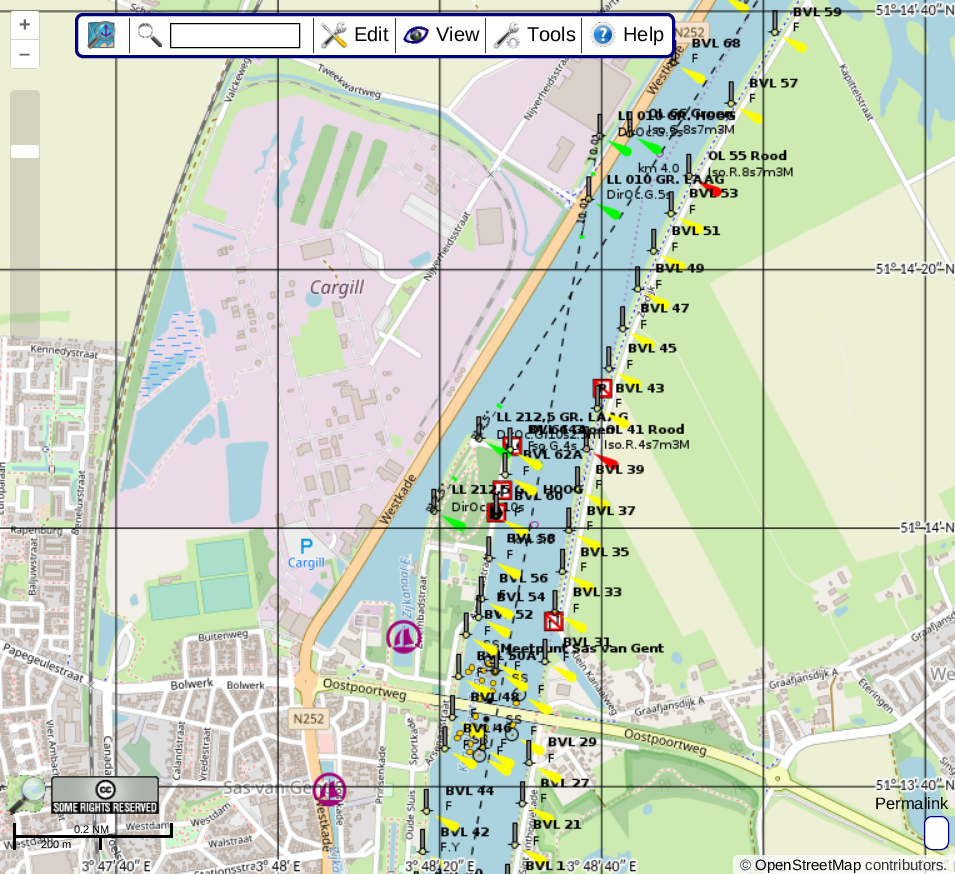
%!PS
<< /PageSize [955 874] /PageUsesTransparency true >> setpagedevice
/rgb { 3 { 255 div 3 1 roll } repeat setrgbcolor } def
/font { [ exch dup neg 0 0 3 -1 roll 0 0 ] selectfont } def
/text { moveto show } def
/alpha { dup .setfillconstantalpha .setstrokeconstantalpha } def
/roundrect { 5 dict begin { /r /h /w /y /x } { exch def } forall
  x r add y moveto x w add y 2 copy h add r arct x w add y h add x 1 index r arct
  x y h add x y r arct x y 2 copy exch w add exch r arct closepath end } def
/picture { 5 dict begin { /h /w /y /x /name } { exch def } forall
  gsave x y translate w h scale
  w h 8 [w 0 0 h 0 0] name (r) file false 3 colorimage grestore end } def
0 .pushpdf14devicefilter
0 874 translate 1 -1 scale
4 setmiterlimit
255 255 255 rgb
0 0 955 874 rectfill
(img_01.rgb) 0 0 955 874 picture
0.25 alpha
128 128 128 rgb
10 10 30 59 5 roundrect fill
1 alpha
255 255 255 rgb
13.5 11 moveto 23 0 rlineto 1.5 0 2.5 1 2.5 2.5 rcurveto 0 25.5 rlineto -28 0 rlineto 0 -25.5 rlineto 0 -1.5 1 -2.5 2.5 -2.5 rcurveto closepath fill
11 40 moveto 28 0 rlineto 0 25.5 rlineto 0 1.5 -1 2.5 -2.5 2.5 rcurveto -23 0 rlineto -1.5 0 -2.5 -1 -2.5 -2.5 rcurveto closepath fill
0.25 alpha
128 128 128 rgb
10 90 30 250 5 roundrect fill
1 alpha
255 255 255 rgb
11 145 28 13 2.5 roundrect fill
0 0 0 rgb
170 823 3 15 rectfill
99 835 3 15 rectfill
13 835 3 15 rectfill
13 835 160 3 rectfill
13 823 3 15 rectfill
255 255 255 rgb
924.5 816.5 24 33 7.5 roundrect gsave fill grestore
0 0 128 rgb
stroke
0.75 alpha
255 255 255 rgb
738 855 moveto 217 0 rlineto 0 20 rlineto -222 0 rlineto 0 -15 rlineto 0 -3 2 -5 5 -5 rcurveto closepath fill
1 alpha
76.5 14.5 597 42 6.5 roundrect gsave fill grestore
0 0 128 rgb
3 setlinewidth
stroke
51 51 51 rgb
129 18 1 35 rectfill
(img_02.rgb) 87 20 29 30 picture
313 18 1 35 rectfill
(img_03.rgb) 138 23 24 24 picture
0 0 0 rgb
1 setlinewidth
170.5 23.5 129 24 rectstroke
51 51 51 rgb
395 18 1 35 rectfill
(img_04.rgb) 320 21 28 28 picture
485 18 1 35 rectfill
(img_05.rgb) 403 26 27 18 picture
581 18 1 35 rectfill
(img_06.rgb) 493 22 27 27 picture
(img_07.rgb) 590 22 26 25 picture
(img_08.rgb) 6 775 41 40 picture
(img_09.rgb) 51 776 108 38 picture
/LiberationSans-Bold 20 font
102 102 102 rgb
(+) 19 31 text
(–) 19 60 text
/LiberationSans-Regular 16.5 font
0 0 0 rgb
(Permalink) 875 809 text
/LiberationSans-Regular 11 font
(0.2 NM) 74 833 text
(200 m) 41 848 text
/LiberationSans-Regular 15 font
51 51 51 rgb
(©) 740 870 text
0 0 0 rgb
(OpenStreetMap) 755 870 text
51 51 51 rgb
(contributors.) 865 870 text
/LiberationSans-Regular 20 font
0 0 0 rgb
(Edit) 354 41 text
(View) 436 41 text
(Tools) 527 41 text
(Help) 623 41 text
.poppdf14devicefilter showpage
